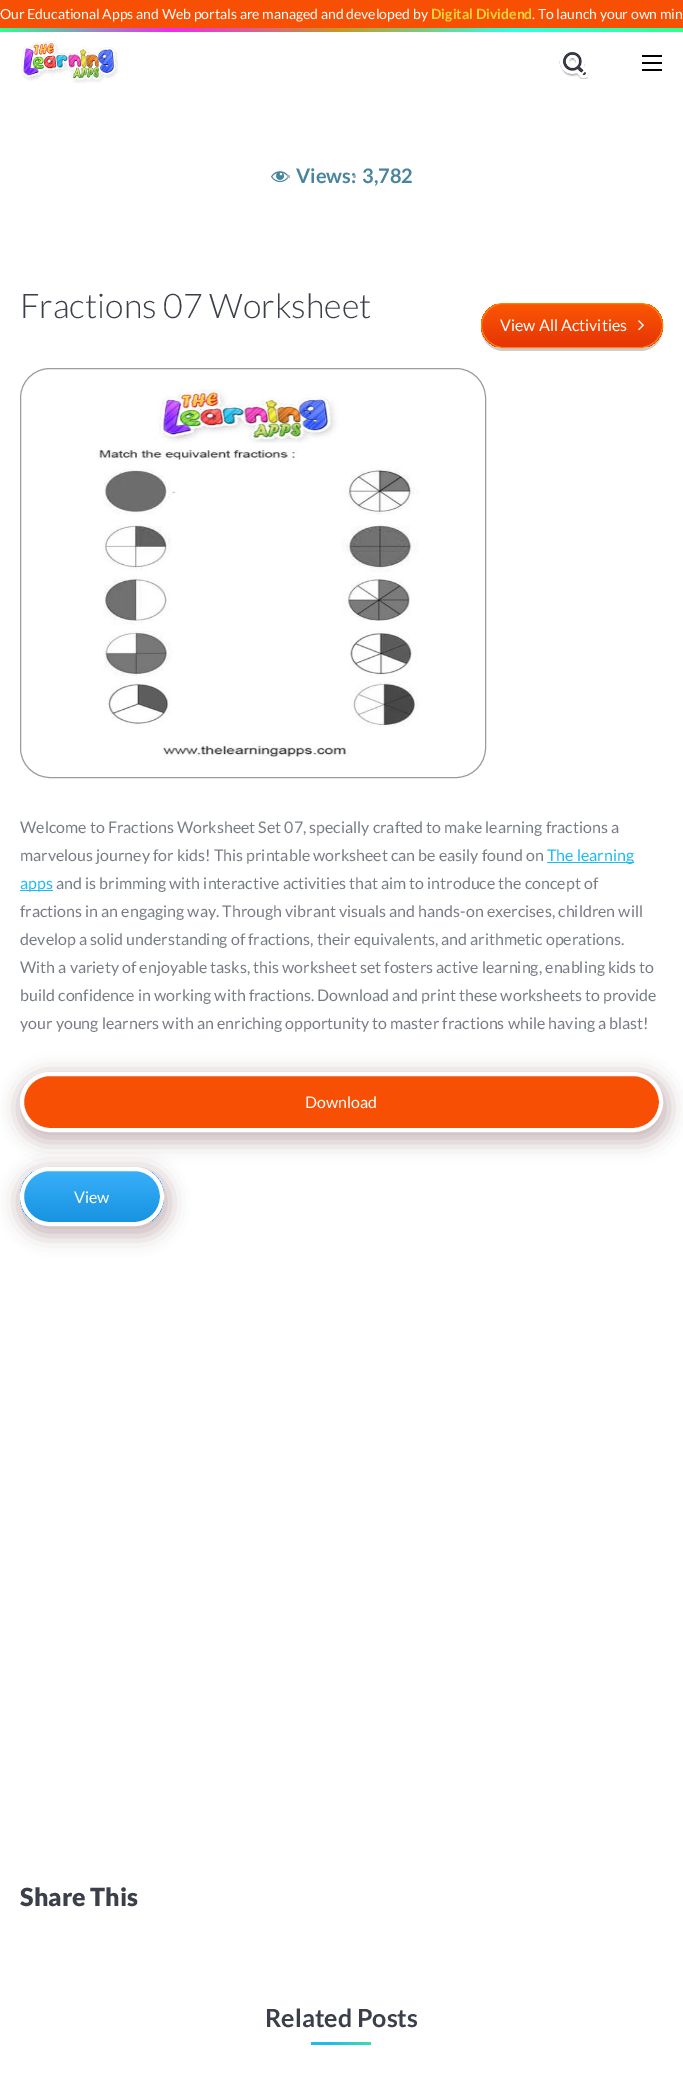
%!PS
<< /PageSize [683 2076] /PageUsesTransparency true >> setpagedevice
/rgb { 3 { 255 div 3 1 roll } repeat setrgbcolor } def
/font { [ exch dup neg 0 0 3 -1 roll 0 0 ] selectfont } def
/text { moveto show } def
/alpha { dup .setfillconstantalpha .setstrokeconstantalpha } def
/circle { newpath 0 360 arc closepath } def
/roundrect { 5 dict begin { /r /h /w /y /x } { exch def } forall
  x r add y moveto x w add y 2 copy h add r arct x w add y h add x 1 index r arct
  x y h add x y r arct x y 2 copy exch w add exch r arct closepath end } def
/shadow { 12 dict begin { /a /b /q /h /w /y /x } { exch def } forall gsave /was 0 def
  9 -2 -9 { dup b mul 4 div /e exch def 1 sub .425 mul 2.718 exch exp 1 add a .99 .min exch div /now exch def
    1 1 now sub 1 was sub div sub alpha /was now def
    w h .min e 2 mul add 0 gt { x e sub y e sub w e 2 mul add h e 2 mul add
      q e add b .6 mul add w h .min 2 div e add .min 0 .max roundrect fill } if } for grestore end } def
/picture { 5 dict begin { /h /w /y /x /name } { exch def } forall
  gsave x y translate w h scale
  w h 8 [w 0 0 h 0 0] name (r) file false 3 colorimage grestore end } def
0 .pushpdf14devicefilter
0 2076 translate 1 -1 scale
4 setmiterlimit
247 80 5 rgb
0 0 683 2076 rectfill
gsave 0 28 moveto 683 0 rlineto 0 4 rlineto -683 0 rlineto closepath clip newpath
<< /ShadingType 2 /ColorSpace /DeviceRGB /Coords [0 30 683 30] /Extend [true true] /Function << /FunctionType 3 /Domain [0 1] /Functions [<< /FunctionType 2 /Domain [0 1] /C0 [0.188 1 0.565] /C1 [0.929 0.176 0.929] /N 1 >> << /FunctionType 2 /Domain [0 1] /C0 [0.929 0.176 0.929] /C1 [0.788 0.596 0.149] /N 1 >> << /FunctionType 2 /Domain [0 1] /C0 [0.788 0.596 0.149] /C1 [0.188 1 0.902] /N 1 >> << /FunctionType 2 /Domain [0 1] /C0 [0.188 1 0.902] /C1 [0.188 1 0.565] /N 1 >>] /Bounds [0.25 0.5 0.75] /Encode [0 1 0 1 0 1 0 1] >> >> shfill grestore
255 255 255 rgb
0 32 683 2044 rectfill
(img_01.rgb) 21 41 97 42 picture
(img_02.rgb) 559 52 31 27 picture
0 0 0 rgb
642 55 20 2 rectfill
642 62 20 2 rectfill
642 69 20 2 rectfill
(img_03.rgb) 271 171 18 12 picture
173 176 182 rgb
288.5 176.5 1.5 circle fill
204 204 204 rgb
481 327 moveto 0 1 rlineto 0 13 10 23 23 23 rcurveto 136 0 rlineto 13 0 23 -10 23 -23 rcurveto 0 -1 rlineto -1 12 -11 21 -23 21 rcurveto -136 0 rlineto -12 0 -22 -9 -23 -21 rcurveto closepath fill
gsave
481 303 182 45 22.5 roundrect clip newpath
gsave 481 304 moveto 182 0 rlineto 0 43 rlineto -182 0 rlineto closepath clip newpath
<< /ShadingType 2 /ColorSpace /DeviceRGB /Coords [572 304 572 347] /Extend [true true] /Function << /FunctionType 2 /Domain [0 1] /C0 [0.984 0.341 0.016] /C1 [0.898 0.204 0.016] /N 1 >> >> shfill grestore
grestore
255 129 0 rgb
481.5 303.5 181 44 22 roundrect stroke
(img_04.rgb) 638 320 6 11 picture
156 156 156 rgb
20.5 368.5 465 409 29.5 roundrect stroke
(img_05.rgb) 96 389 323 368 picture
30 187 240 rgb
547 862 87 1 rectfill
20 890 33 1 rectfill
183 158 162 rgb
18 1074 651 68 34 9.5 0.72 shadow
247 80 5 rgb
22 1074 639 56 28 roundrect gsave fill grestore
255 255 255 rgb
4 setlinewidth
stroke
183 158 162 rgb
18 1169 152 67 33.5 9.5 0.72 shadow
gsave
20 1167 144 59 29.5 roundrect clip newpath
gsave 20 1171 moveto 144 0 rlineto 0 51 rlineto -144 0 rlineto closepath clip newpath
<< /ShadingType 2 /ColorSpace /DeviceRGB /Coords [92 1171 92 1222] /Extend [true true] /Function << /FunctionType 2 /Domain [0 1] /C0 [0.224 0.686 0.976] /C1 [0.09 0.576 0.878] /N 1 >> >> shfill grestore
grestore
255 255 255 rgb
22 1169 140 55 27.5 roundrect stroke
gsave 311 2042 moveto 60 0 rlineto 0 3 rlineto -60 0 rlineto closepath clip newpath
<< /ShadingType 2 /ColorSpace /DeviceRGB /Coords [311 2044 371 2044] /Extend [true true] /Function << /FunctionType 3 /Domain [0 1] /Functions [<< /FunctionType 2 /Domain [0 1] /C0 [0.118 0.733 0.941] /C1 [0.118 0.733 0.941] /N 1 >> << /FunctionType 2 /Domain [0 1] /C0 [0.118 0.733 0.941] /C1 [0.224 0.875 0.667] /N 1 >>] /Bounds [0.3] /Encode [0 1 0 1] >> >> shfill grestore
/Lato-Regular 14 font
(Our Educational Apps and Web portals are managed and developed by) 0 19 text
/Lato-Bold 14 font
250 212 50 rgb
(Digital Dividend) 431 19 text
/Lato-Regular 14 font
255 255 255 rgb
(. To launch your own min) 532 19 text
/Lato-Bold 20 font
72 133 156 rgb
(Views:) 296 183 text
173 176 182 rgb
354.5 176.5 1.5 circle fill
72 133 156 rgb
(3,782) 362 183 text
/Lato-Light 34 font
59 63 74 rgb
(Fractions 07 Worksheet) 20 318 text
/Lato-Regular 16 font
255 255 255 rgb
(View All Activities) 500 331 text
120 125 133 rgb
(Welcome to Fractions Worksheet Set 07, specially crafted to make learning fractions a) 20 833 text
(marvelous journey for kids! This printable worksheet can be easily found on) 20 861 text
30 187 240 rgb
(The learning) 547 861 text
(apps) 20 889 text
120 125 133 rgb
(and is brimming with interactive activities that aim to introduce the concept of) 56 889 text
(fractions in an engaging way. Through vibrant visuals and hands-on exercises, children will) 20 917 text
(develop a solid understanding of fractions, their equivalents, and arithmetic operations.) 20 945 text
(With a variety of enjoyable tasks, this worksheet set fosters active learning, enabling kids to) 20 973 text
(build confidence in working with fractions. Download and print these worksheets to provide) 20 1001 text
(your young learners with an enriching opportunity to master fractions while having a blast!) 20 1029 text
255 255 255 rgb
(Download) 305 1108 text
(View) 74 1203 text
/Lato-Black 25 font
59 63 74 rgb
(Share This) 20 1906 text
/Lato-Bold 25 font
(Related Posts) 265 2027 text
.poppdf14devicefilter showpage
